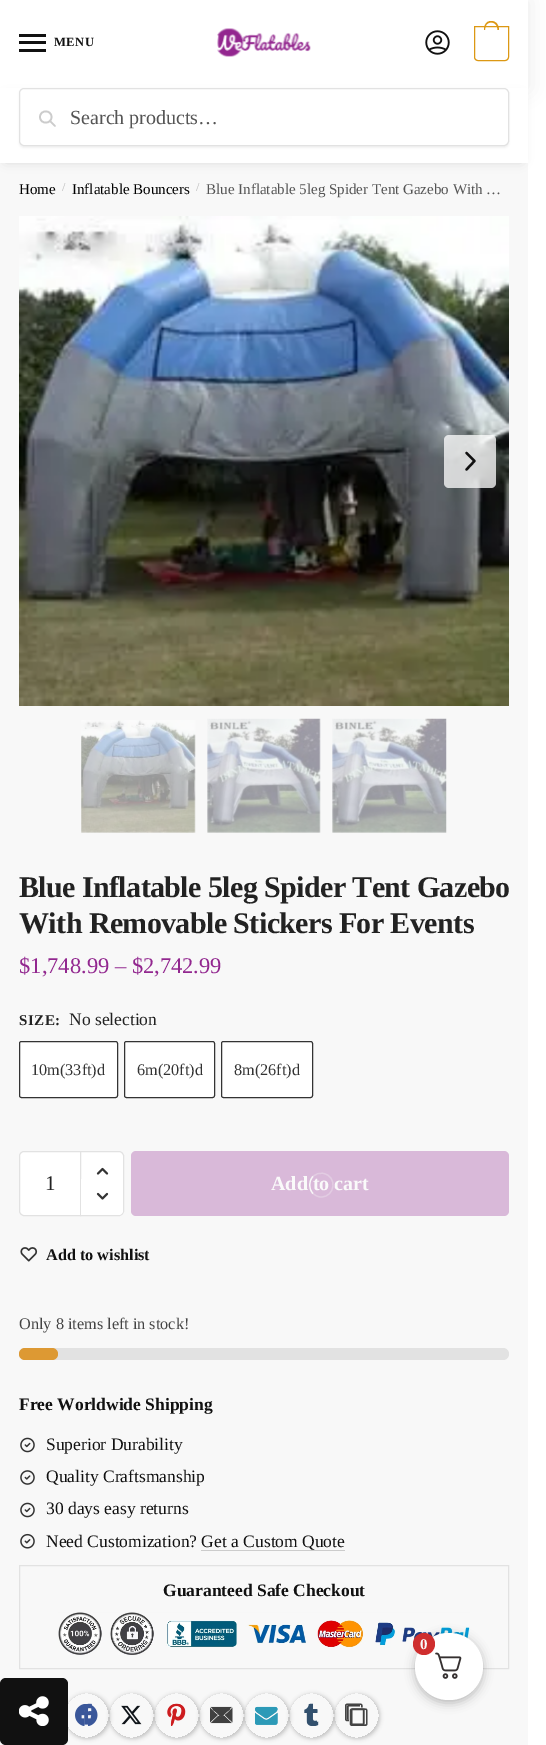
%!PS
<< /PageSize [546 1745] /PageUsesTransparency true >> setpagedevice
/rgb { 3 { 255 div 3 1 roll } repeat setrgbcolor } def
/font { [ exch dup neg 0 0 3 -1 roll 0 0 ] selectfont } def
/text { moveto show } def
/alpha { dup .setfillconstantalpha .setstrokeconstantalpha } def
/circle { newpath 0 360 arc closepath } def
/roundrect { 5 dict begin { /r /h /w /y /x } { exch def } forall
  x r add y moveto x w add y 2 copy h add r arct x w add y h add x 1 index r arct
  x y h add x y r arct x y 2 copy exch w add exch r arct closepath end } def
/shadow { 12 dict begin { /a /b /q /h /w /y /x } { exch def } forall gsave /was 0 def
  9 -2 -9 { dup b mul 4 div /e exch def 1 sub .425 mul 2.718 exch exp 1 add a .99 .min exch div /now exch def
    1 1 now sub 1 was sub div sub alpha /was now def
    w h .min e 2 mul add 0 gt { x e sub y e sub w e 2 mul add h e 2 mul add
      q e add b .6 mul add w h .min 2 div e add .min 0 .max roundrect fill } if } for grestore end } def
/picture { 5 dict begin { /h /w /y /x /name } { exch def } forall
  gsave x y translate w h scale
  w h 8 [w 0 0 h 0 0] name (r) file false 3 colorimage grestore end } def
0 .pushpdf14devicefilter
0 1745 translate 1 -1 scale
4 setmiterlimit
255 255 255 rgb
0 0 546 1745 rectfill
0 0 0 rgb
0 1 528 88 0 9.5 0.08 shadow
255 255 255 rgb
0 0 528 88 rectfill
17 17 17 rgb
19 34 27 3 rectfill
19 41 27 3 rectfill
19 49 27 3 rectfill
(img_01.rgb) 217 28 94 29 picture
(img_02.rgb) 425 30 25 25 picture
220 152 20 rgb
474.5 26.5 moveto 34 0 rlineto 0 30.5 rlineto 0 2 -1.5 3.5 -3.5 3.5 rcurveto -27 0 rlineto -2 0 -3.5 -1.5 -3.5 -3.5 rcurveto closepath stroke
491 21 moveto 5.5 0 8 4.5 8 9 rcurveto -15 0 rlineto 0 -4.5 2 -9 7 -9 rcurveto closepath 491 22.5 moveto 4.5 0 6.5 3.5 6.5 7.5 rcurveto -12.5 0 rlineto 0 -4 2 -7.5 6 -7.5 rcurveto closepath eofill
248 248 248 rgb
0 163 528 1582 rectfill
0 0 0 rgb
6 98 515 62 0 6 0.18 shadow
255 255 255 rgb
0 88 528 75 rectfill
0 0 0 rgb
19 89 490 59 5 1 0.05 shadow
255 255 255 rgb
19.5 88.5 489 57 4.5 roundrect gsave fill grestore
226 226 226 rgb
stroke
204 204 204 rgb
1.7 setlinewidth
1 setlinecap
1 setlinejoin
55 126 moveto -5 -5 rlineto 51.5 117 moveto 0 7.5 -11.5 7.5 -11.5 0 rcurveto 0 -7.5 11.5 -7.5 11.5 0 rcurveto closepath stroke
(img_03.rgb) 19 216 490 490 picture
0.75 alpha
255 255 255 rgb
444 435 52 53 5 roundrect fill
1 alpha
17 17 17 rgb
2.3 setlinewidth
466.5 469.5 moveto 8 -8.5 rlineto -8 -8 rlineto stroke
(img_04.rgb) 81 720 115 113 picture
(img_05.rgb) 207 718 114 115 picture
(img_06.rgb) 332 718 115 115 picture
255 255 255 rgb
19.5 1041.5 98 56 2 roundrect gsave fill grestore
51 51 51 rgb
1 setlinewidth
0 setlinecap
0 setlinejoin
stroke
255 255 255 rgb
124.5 1041.5 90 56 2 roundrect gsave fill grestore
51 51 51 rgb
stroke
255 255 255 rgb
221.5 1041.5 91 56 2 roundrect gsave fill grestore
51 51 51 rgb
stroke
255 255 255 rgb
24 1151.5 moveto 56.5 0 rlineto 0 64 rlineto -56.5 0 rlineto -2.5 0 -4.5 -2 -4.5 -4.5 rcurveto 0 -55 rlineto 0 -2.5 2 -4.5 4.5 -4.5 rcurveto closepath gsave fill grestore
226 226 226 rgb
stroke
255 255 255 rgb
80.5 1151.5 moveto 38.5 0 rlineto 2.5 0 4.5 2 4.5 4.5 rcurveto 0 55 rlineto 0 2.5 -2 4.5 -4.5 4.5 rcurveto -38.5 0 rlineto closepath gsave fill grestore
226 226 226 rgb
stroke
(img_07.rgb) 96 1167 13 8 picture
255 255 255 rgb
81 1179 moveto 37 0 rlineto 3 0 5 2 5 5 rcurveto 0 26 rlineto 0 3 -2 5 -5 5 rcurveto -37 0 rlineto closepath fill
(img_08.rgb) 96 1192 13 8 picture
217 185 217 rgb
131 1151 378 65 5 roundrect fill
(img_09.rgb) 20 1247 18 15 picture
226 226 226 rgb
19 1348 490 12 6 roundrect fill
221 153 51 rgb
19 1348 39 12 6 roundrect fill
(img_10.rgb) 20 1437 15 16 picture
(img_11.rgb) 20 1470 15 15 picture
(img_10.rgb) 20 1502 15 16 picture
(img_12.rgb) 20 1533 15 16 picture
204 204 204 rgb
201 1550 144 1 rectfill
226 226 226 rgb
19.5 1565.5 489 103 rectstroke
(img_13.rgb) 58 1612 412 43 picture
gsave
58 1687 moveto 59 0 rlineto 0 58 rlineto -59 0 rlineto closepath 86.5 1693 moveto 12.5 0 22.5 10 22.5 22.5 rcurveto 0 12.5 -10 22.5 -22.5 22.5 rcurveto -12.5 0 -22.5 -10 -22.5 -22.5 rcurveto 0 -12.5 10 -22.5 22.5 -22.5 rcurveto closepath eoclip newpath
0 0 0 rgb
65 1694 45 45 22.5 2 0.2 shadow
grestore
(img_15.rgb) 75 1704 23 22 picture
(img_14.rgb) 81 1703 11 22 picture
gsave
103 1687 moveto 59 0 rlineto 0 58 rlineto -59 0 rlineto closepath 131.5 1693 moveto 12.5 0 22.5 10 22.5 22.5 rcurveto 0 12.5 -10 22.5 -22.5 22.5 rcurveto -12.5 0 -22.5 -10 -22.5 -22.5 rcurveto 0 -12.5 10 -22.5 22.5 -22.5 rcurveto closepath eoclip newpath
0 0 0 rgb
110 1694 45 45 22.5 2 0.2 shadow
grestore
(img_16.rgb) 121 1705 21 20 picture
gsave
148 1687 moveto 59 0 rlineto 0 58 rlineto -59 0 rlineto closepath 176.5 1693 moveto 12.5 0 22.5 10 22.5 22.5 rcurveto 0 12.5 -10 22.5 -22.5 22.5 rcurveto -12.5 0 -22.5 -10 -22.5 -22.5 rcurveto 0 -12.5 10 -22.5 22.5 -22.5 rcurveto closepath eoclip newpath
0 0 0 rgb
155 1694 45 45 22.5 2 0.2 shadow
grestore
(img_18.rgb) 167 1704 19 22 picture
(img_17.rgb) 168 1703 16 20 picture
gsave
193 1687 moveto 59 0 rlineto 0 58 rlineto -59 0 rlineto closepath 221.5 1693 moveto 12.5 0 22.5 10 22.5 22.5 rcurveto 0 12.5 -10 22.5 -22.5 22.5 rcurveto -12.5 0 -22.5 -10 -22.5 -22.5 rcurveto 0 -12.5 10 -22.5 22.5 -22.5 rcurveto closepath eoclip newpath
0 0 0 rgb
200 1694 45 45 22.5 2 0.2 shadow
grestore
(img_19.rgb) 210 1706 23 18 picture
(img_20.rgb) 212 1708 18 13 picture
gsave
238 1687 moveto 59 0 rlineto 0 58 rlineto -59 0 rlineto closepath 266.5 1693 moveto 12.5 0 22.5 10 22.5 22.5 rcurveto 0 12.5 -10 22.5 -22.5 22.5 rcurveto -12.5 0 -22.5 -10 -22.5 -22.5 rcurveto 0 -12.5 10 -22.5 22.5 -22.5 rcurveto closepath eoclip newpath
0 0 0 rgb
245 1694 45 45 22.5 2 0.2 shadow
grestore
(img_22.rgb) 255 1707 23 18 picture
(img_21.rgb) 255 1706 23 19 picture
gsave
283 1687 moveto 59 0 rlineto 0 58 rlineto -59 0 rlineto closepath 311.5 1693 moveto 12.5 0 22.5 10 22.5 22.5 rcurveto 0 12.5 -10 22.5 -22.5 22.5 rcurveto -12.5 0 -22.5 -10 -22.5 -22.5 rcurveto 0 -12.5 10 -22.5 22.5 -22.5 rcurveto closepath eoclip newpath
0 0 0 rgb
290 1694 45 45 22.5 2 0.2 shadow
grestore
(img_24.rgb) 304 1704 15 22 picture
(img_23.rgb) 305 1703 13 20 picture
gsave
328 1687 moveto 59 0 rlineto 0 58 rlineto -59 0 rlineto closepath 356.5 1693 moveto 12.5 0 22.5 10 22.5 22.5 rcurveto 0 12.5 -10 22.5 -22.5 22.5 rcurveto -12.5 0 -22.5 -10 -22.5 -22.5 rcurveto 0 -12.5 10 -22.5 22.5 -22.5 rcurveto closepath eoclip newpath
0 0 0 rgb
335 1694 45 45 22.5 2 0.2 shadow
grestore
(img_25.rgb) 346 1704 19 22 picture
0 0 0 rgb
415 1635 68 68 34 5 0.25 shadow
255 255 255 rgb
415 1633 68 67 33.5 roundrect fill
(img_26.rgb) 435 1652 27 27 picture
207 46 46 rgb
424 1644 11 circle fill
17 17 17 rgb
0 1678 68 67 6 roundrect fill
(img_27.rgb) 19 1696 30 30 picture
/LiberationSerif-Bold 12.5 font
54 46 moveto 0.5 0 (MENU) ashow
/LiberationSerif-Regular 20 font
85 85 85 rgb
(Search products…) 70 124 text
/LiberationSerif-Regular 15 font
0 0 0 rgb
(Home) 19 194 text
/LiberationSerif-Regular 12 font
183 183 183 rgb
(/) 62 191 text
/LiberationSerif-Regular 15 font
0 0 0 rgb
(Inflatable Bouncers) 72 194 text
/LiberationSerif-Regular 12 font
183 183 183 rgb
(/) 196 191 text
/LiberationSerif-Regular 15 font
85 85 85 rgb
(Blue Inflatable 5leg Spider Tent Gazebo With …) 206 194 text
/LiberationSerif-Bold 30 font
34 34 34 rgb
19 897 moveto -0.6 0 (Blue Inflatable 5leg Spider Tent Gazebo) ashow
19 933 moveto -0.6 0 (With Removable Stickers For Events) ashow
/LiberationSerif-Regular 22.5 font
146 39 143 rgb
($1,748.99 – $2,742.99) 19 973 text
/LiberationSerif-Bold 15 font
34 34 34 rgb
19 1025 moveto 0.5 0 (SIZE:) ashow
/LiberationSerif-Regular 17.5 font
(No selection) 69 1025 text
/LiberationSerif-Regular 16.25 font
51 51 51 rgb
(10m\(33ft\)d) 31 1075 text
(6m\(20ft\)d) 137 1075 text
(8m\(26ft\)d) 234 1075 text
/LiberationSerif-Regular 21 font
34 34 34 rgb
(1) 45 1190 text
/LiberationSerif-Bold 20 font
250 250 250 rgb
(Add to cart) 271 1190 text
226 204 226 rgb
1.2 setlinewidth
313 1176.5 moveto 2.5 -2.5 6.5 -4 10.5 -3 rcurveto 14 2.5 12 23.5 -2.5 23.5 rcurveto -3 0 -6 -1.5 -8 -3.5 rcurveto stroke
248 248 248 rgb
313 1193.5 moveto -4.5 -4.5 -4.5 -12.5 0 -17 rcurveto stroke
/LiberationSerif-Bold 16.25 font
17 17 17 rgb
(Add to wishlist) 46 1260 text
/LiberationSerif-Regular 16.25 font
68 68 68 rgb
(Only 8 items left in stock!) 19 1329 text
/LiberationSerif-Bold 17.5 font
17 17 17 rgb
(Free Worldwide Shipping) 19 1410 text
/LiberationSerif-Regular 17.5 font
(Superior Durability) 46 1450 text
(Quality Craftsmanship) 46 1482 text
(30 days easy returns) 46 1514 text
(Need Customization? Get a Custom Quote) 46 1547 text
/LiberationSerif-Bold 17.5 font
(Guaranteed Safe Checkout) 163 1596 text
/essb-Regular 22.5 font
68 68 68 rgb
(_) 345 1726 text
/LiberationSerif-Bold 15 font
250 250 250 rgb
(0) 420 1649 text
.poppdf14devicefilter showpage
